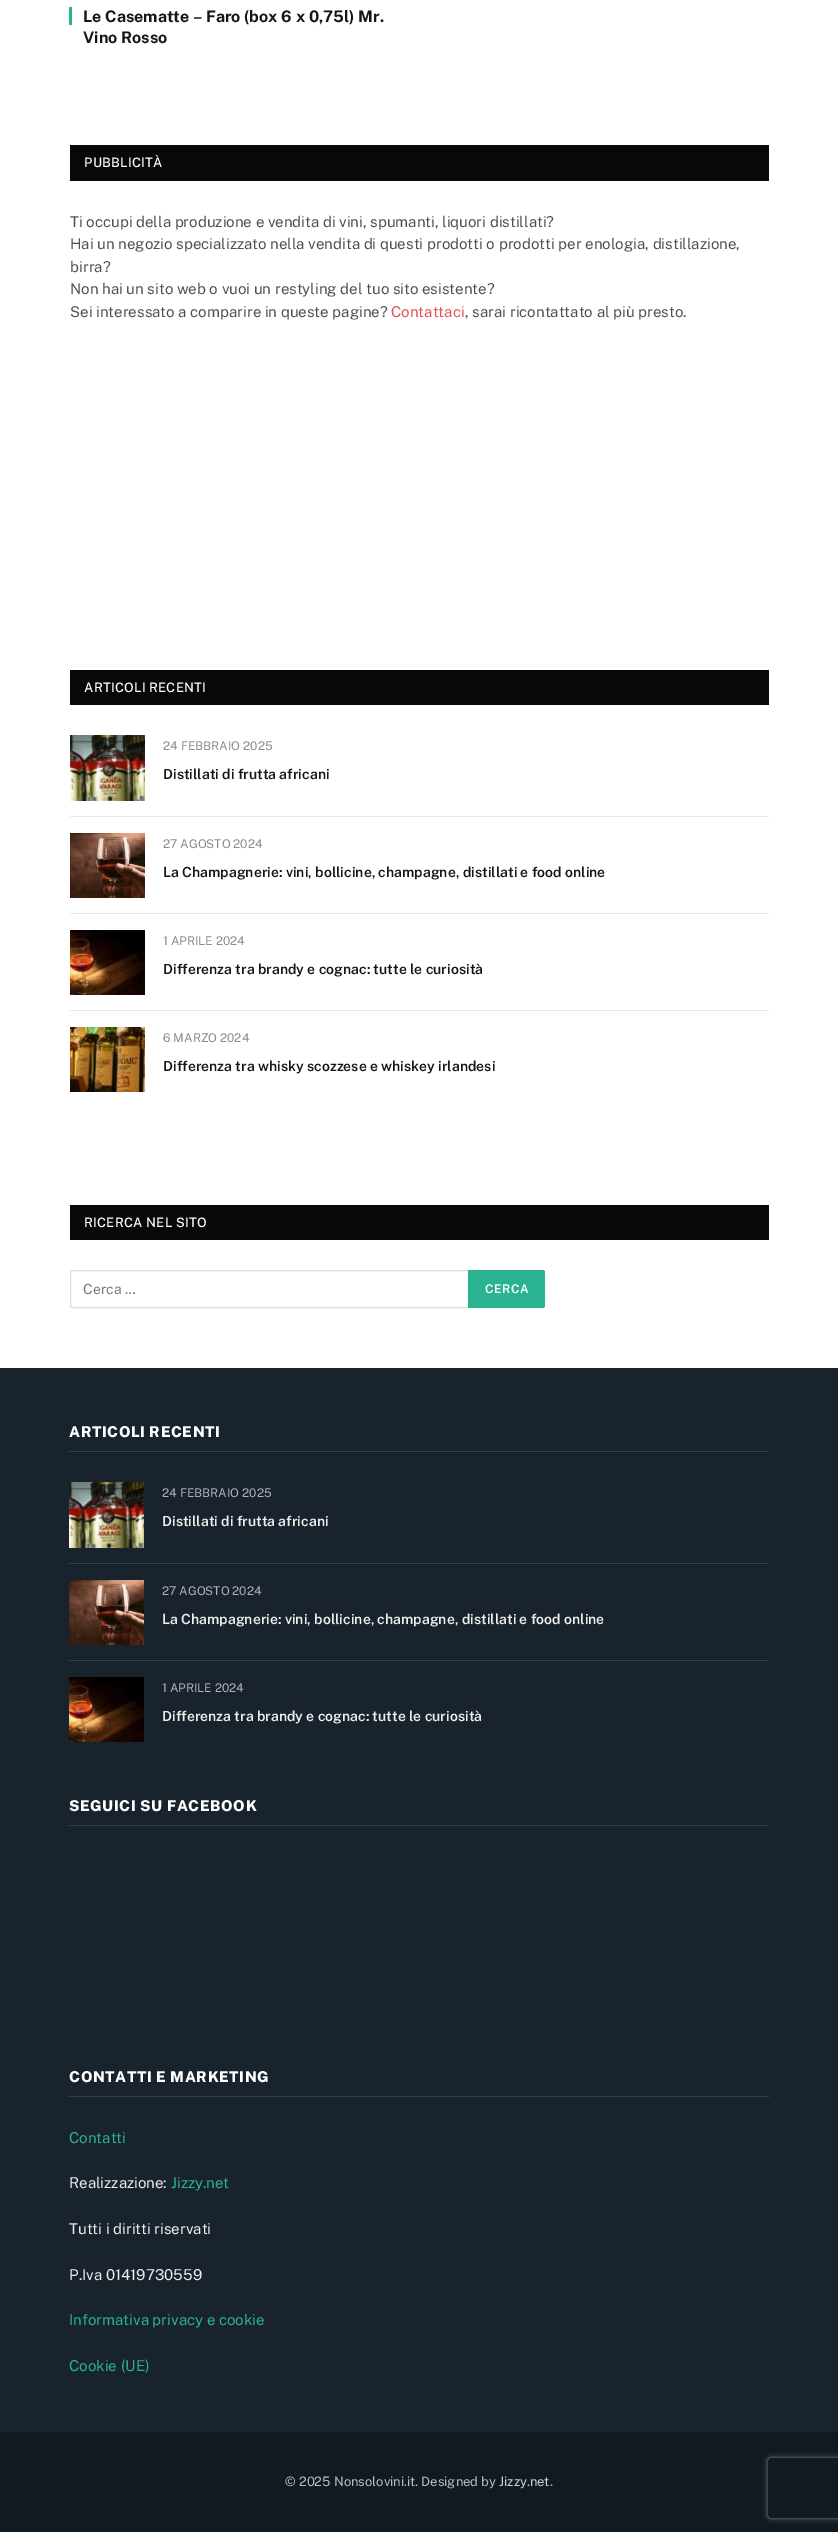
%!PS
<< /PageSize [838 2532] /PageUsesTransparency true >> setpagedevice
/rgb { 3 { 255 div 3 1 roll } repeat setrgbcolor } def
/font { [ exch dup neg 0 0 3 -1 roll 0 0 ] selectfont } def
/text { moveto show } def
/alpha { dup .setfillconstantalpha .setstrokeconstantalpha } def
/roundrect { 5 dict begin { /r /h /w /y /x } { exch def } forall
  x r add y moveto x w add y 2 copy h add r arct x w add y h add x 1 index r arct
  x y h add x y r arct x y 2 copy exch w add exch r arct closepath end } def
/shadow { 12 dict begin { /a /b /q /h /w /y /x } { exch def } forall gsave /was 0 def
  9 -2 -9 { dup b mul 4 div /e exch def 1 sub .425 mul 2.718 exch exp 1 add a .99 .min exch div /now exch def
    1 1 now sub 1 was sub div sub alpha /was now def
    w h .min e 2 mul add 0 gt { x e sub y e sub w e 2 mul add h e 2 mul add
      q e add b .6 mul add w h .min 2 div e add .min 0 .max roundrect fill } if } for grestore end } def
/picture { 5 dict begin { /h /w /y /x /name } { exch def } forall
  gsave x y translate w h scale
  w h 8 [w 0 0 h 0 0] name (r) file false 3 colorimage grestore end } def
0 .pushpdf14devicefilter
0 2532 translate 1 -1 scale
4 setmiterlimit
255 255 255 rgb
0 0 838 2532 rectfill
42 179 145 rgb
69 7 3 18 rectfill
8 8 8 rgb
70 145 699 36 rectfill
70 670 699 35 rectfill
(img_01.rgb) 70 735 75 66 picture
232 232 232 rgb
70 816 699 1 rectfill
(img_02.rgb) 70 833 75 65 picture
70 913 699 1 rectfill
(img_03.rgb) 70 930 75 65 picture
70 1010 699 1 rectfill
(img_04.rgb) 70 1027 75 65 picture
8 8 8 rgb
70 1205 699 35 rectfill
221 221 221 rgb
70.5 1270.5 399 37 1.5 roundrect stroke
42 179 145 rgb
468 1270 moveto 75 0 rlineto 1 0 2 1 2 2 rcurveto 0 34 rlineto 0 1 -1 2 -2 2 rcurveto -75 0 rlineto closepath fill
25 35 45 rgb
0 1368 838 1064 rectfill
55 64 72 rgb
69 1451 700 1 rectfill
(img_05.rgb) 69 1482 75 66 picture
69 1563 700 1 rectfill
(img_06.rgb) 69 1580 75 65 picture
69 1660 700 1 rectfill
(img_03.rgb) 69 1677 75 65 picture
69 1825 700 1 rectfill
69 2096 700 1 rectfill
18 26 33 rgb
0 2432 838 100 rectfill
gsave
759 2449 moveto 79 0 rlineto 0 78 rlineto -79 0 rlineto closepath 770 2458 moveto 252 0 rlineto 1 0 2 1 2 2 rcurveto 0 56 rlineto 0 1 -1 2 -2 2 rcurveto -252 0 rlineto -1 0 -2 -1 -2 -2 rcurveto 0 -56 rlineto 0 -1 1 -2 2 -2 rcurveto closepath eoclip newpath
128 128 128 rgb
768 2458 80 60 2 2.5 1 shadow
grestore
/PublicSans-Bold 16 font
22 22 22 rgb
(Le Casematte – Faro \(box 6 x 0,75l\) Mr.) 83 22 text
(Vino Rosso) 83 43 text
/PublicSans-Medium 13 font
255 255 255 rgb
84 167 moveto 0.25 0 (PUBBLICITÀ) ashow
/PublicSans-Regular 15 font
77 80 83 rgb
(Ti occupi della produzione e vendita di vini, spumanti, liquori distillati?) 70 227 text
(Hai un negozio specializzato nella vendita di questi prodotti o prodotti per enologia, distillazione,) 70 249 text
(birra?) 70 272 text
(Non hai un sito web o vuoi un restyling del tuo sito esistente?) 70 294 text
(Sei interessato a comparire in queste pagine?) 70 317 text
229 78 83 rgb
(Contattaci) 391 317 text
77 80 83 rgb
(, sarai ricontattato al più presto.) 465 317 text
/PublicSans-Medium 13 font
255 255 255 rgb
84 692 moveto 0.25 0 (ARTICOLI RECENTI) ashow
/PublicSans-Regular 12 font
138 138 138 rgb
(24 FEBBRAIO 2025) 163 750 text
/PublicSans-SemiBold 14 font
22 22 22 rgb
(Distillati di frutta africani) 163 779 text
/PublicSans-Regular 12 font
138 138 138 rgb
(27 AGOSTO 2024) 163 848 text
/PublicSans-SemiBold 14 font
22 22 22 rgb
(La Champagnerie: vini, bollicine, champagne, distillati e food online) 163 877 text
/PublicSans-Regular 12 font
138 138 138 rgb
(1 APRILE 2024) 163 945 text
/PublicSans-SemiBold 14 font
22 22 22 rgb
(Differenza tra brandy e cognac: tutte le curiosità) 163 974 text
/PublicSans-Regular 12 font
138 138 138 rgb
(6 MARZO 2024) 163 1042 text
/PublicSans-SemiBold 14 font
22 22 22 rgb
(Differenza tra whisky scozzese e whiskey irlandesi) 163 1071 text
/PublicSans-Medium 13 font
255 255 255 rgb
84 1227 moveto 0.25 0 (RICERCA NEL SITO) ashow
/PublicSans-Regular 14 font
119 119 119 rgb
(Cerca …) 83 1294 text
/PublicSans-SemiBold 12 font
255 255 255 rgb
485 1293 moveto 0.5 0 (CERCA) ashow
/PublicSans-ExtraBold 15 font
69 1437 moveto 0.6 0 (ARTICOLI RECENTI) ashow
/PublicSans-Regular 12 font
175 178 182 rgb
(24 FEBBRAIO 2025) 162 1497 text
/PublicSans-SemiBold 14 font
238 238 238 rgb
(Distillati di frutta africani) 162 1526 text
/PublicSans-Regular 12 font
175 178 182 rgb
(27 AGOSTO 2024) 162 1595 text
/PublicSans-SemiBold 14 font
238 238 238 rgb
(La Champagnerie: vini, bollicine, champagne, distillati e food online) 162 1624 text
/PublicSans-Regular 12 font
175 178 182 rgb
(1 APRILE 2024) 162 1692 text
/PublicSans-SemiBold 14 font
238 238 238 rgb
(Differenza tra brandy e cognac: tutte le curiosità) 162 1721 text
/PublicSans-ExtraBold 15 font
255 255 255 rgb
69 1811 moveto 0.6 0 (SEGUICI SU FACEBOOK) ashow
69 2082 moveto 0.6 0 (CONTATTI E MARKETING) ashow
/PublicSans-Regular 15 font
42 179 145 rgb
(Contatti) 69 2143 text
238 238 238 rgb
(Realizzazione:) 69 2188 text
42 179 145 rgb
(Jizzy.net) 171 2188 text
238 238 238 rgb
(Tutti i diritti riservati) 69 2234 text
(P.Iva 01419730559) 69 2280 text
42 179 145 rgb
(Informativa privacy e cookie) 69 2325 text
(Cookie \(UE\)) 69 2371 text
/PublicSans-Regular 13 font
187 187 187 rgb
(© 2025 Nonsolovini.it. Designed by) 285 2486 text
209 209 209 rgb
(Jizzy.net) 499 2486 text
187 187 187 rgb
(.) 550 2486 text
.poppdf14devicefilter showpage
